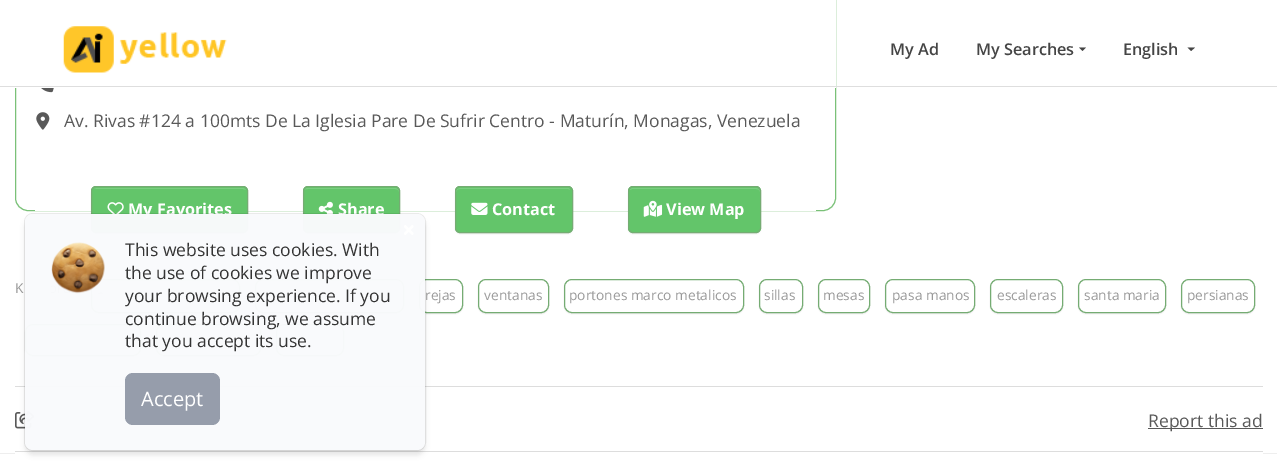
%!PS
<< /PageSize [1277 475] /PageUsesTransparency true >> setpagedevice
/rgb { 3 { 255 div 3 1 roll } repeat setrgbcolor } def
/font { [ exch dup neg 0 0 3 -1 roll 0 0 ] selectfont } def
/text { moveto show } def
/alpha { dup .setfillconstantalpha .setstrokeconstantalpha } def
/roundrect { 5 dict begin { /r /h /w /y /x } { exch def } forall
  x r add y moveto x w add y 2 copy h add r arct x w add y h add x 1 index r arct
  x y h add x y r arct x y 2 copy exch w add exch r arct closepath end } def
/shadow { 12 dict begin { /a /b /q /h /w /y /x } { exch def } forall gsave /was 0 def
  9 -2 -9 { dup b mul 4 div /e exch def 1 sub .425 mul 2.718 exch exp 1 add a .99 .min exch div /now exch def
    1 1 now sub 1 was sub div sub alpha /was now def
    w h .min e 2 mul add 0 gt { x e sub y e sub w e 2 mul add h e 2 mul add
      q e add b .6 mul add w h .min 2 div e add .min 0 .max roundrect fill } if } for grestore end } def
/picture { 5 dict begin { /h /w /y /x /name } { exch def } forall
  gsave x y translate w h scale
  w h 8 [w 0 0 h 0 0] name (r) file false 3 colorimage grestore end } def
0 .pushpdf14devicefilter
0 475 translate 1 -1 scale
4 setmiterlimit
255 255 255 rgb
0 0 1277 475 rectfill
122 193 120 rgb
15.5 -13.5 820 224 12.5 roundrect stroke
255 255 255 rgb
15 0 821 88 rectfill
222 222 222 rgb
0 86 1277 1 rectfill
(img_01.rgb) 63 26 164 47 picture
69 69 69 rgb
1079 47.5 moveto 7 0 rlineto -3.5 3.5 rlineto closepath fill
1187.5 47.5 moveto 7.5 0 rlineto -4 3.5 rlineto closepath fill
(img_02.rgb) 41 88 13 5 picture
(img_03.rgb) 36 112 14 18 picture
255 255 255 rgb
35 210 781 1 rectfill
0 0 0 rgb
91 188 157 46 5 0.5 0.07 shadow
99 197 106 rgb
91 186 157 47 5 roundrect fill
122 206 128 rgb
96 189 moveto 147 0 rlineto 3 1 rlineto -1 -1 -2 -2 -4 -2 rcurveto -145 0 rlineto -1 0 -2 1 -3 1 rcurveto closepath fill
117 172 115 rgb
91.5 186.5 156 46 4.5 roundrect stroke
(img_04.rgb) 107 202 17 14 picture
0 0 0 rgb
303 188 97 46 5 0.5 0.07 shadow
99 197 106 rgb
303 186 97 47 5 roundrect fill
122 206 128 rgb
308 189 moveto 87 0 rlineto 2 0 4 1 4 3 rcurveto 0 -2 -2 -4 -4 -4 rcurveto -87 0 rlineto -2 0 -3 1 -4 2 rcurveto 1 -1 2 -1 4 -1 rcurveto closepath fill
117 172 115 rgb
303.5 186.5 96 46 4.5 roundrect stroke
(img_05.rgb) 318 201 15 15 picture
0 0 0 rgb
455 188 118 46 5 0.5 0.07 shadow
99 197 106 rgb
455 186 118 47 5 roundrect fill
122 206 128 rgb
460 189 moveto 108 0 rlineto 1 0 2 0 2 1 rcurveto 0 -1 -1 -2 -2 -2 rcurveto -108 0 rlineto -3 1 rlineto -1 3 rlineto 0 -2 2 -3 4 -3 rcurveto closepath fill
117 172 115 rgb
455.5 186.5 117 46 4.5 roundrect stroke
(img_06.rgb) 471 202 17 13 picture
0 0 0 rgb
628 188 133 46 5 0.5 0.07 shadow
99 197 106 rgb
628 186 133 47 5 roundrect fill
122 206 128 rgb
632 189 moveto 124 0 rlineto 2 0 4 1 4 3 rcurveto 0 -2 -2 -4 -4 -4 rcurveto -123 0 rlineto -1 0 -3 1 -3 2 rcurveto closepath fill
117 172 115 rgb
628.5 186.5 132 46 4.5 roundrect stroke
(img_07.rgb) 643 200 20 17 picture
gsave
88 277 moveto 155 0 rlineto 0 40 rlineto -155 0 rlineto closepath 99 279 moveto 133 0 rlineto 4.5 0 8 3.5 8 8 rcurveto 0 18 rlineto 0 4.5 -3.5 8 -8 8 rcurveto -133 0 rlineto -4.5 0 -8 -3.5 -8 -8 rcurveto 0 -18 rlineto 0 -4.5 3.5 -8 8 -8 rcurveto closepath eoclip newpath
0 0 0 rgb
91 280 149 34 8 0.5 0.07 shadow
grestore
91.5 279.5 148 33 7.5 roundrect stroke
gsave
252 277 moveto 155 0 rlineto 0 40 rlineto -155 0 rlineto closepath 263 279 moveto 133 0 rlineto 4.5 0 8 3.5 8 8 rcurveto 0 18 rlineto 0 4.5 -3.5 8 -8 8 rcurveto -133 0 rlineto -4.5 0 -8 -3.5 -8 -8 rcurveto 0 -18 rlineto 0 -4.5 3.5 -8 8 -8 rcurveto closepath eoclip newpath
0 0 0 rgb
255 280 149 34 8 0.5 0.07 shadow
grestore
255.5 279.5 148 33 7.5 roundrect stroke
gsave
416 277 moveto 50 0 rlineto 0 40 rlineto -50 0 rlineto closepath 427 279 moveto 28 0 rlineto 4.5 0 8 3.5 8 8 rcurveto 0 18 rlineto 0 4.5 -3.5 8 -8 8 rcurveto -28 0 rlineto -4.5 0 -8 -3.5 -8 -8 rcurveto 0 -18 rlineto 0 -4.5 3.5 -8 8 -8 rcurveto closepath eoclip newpath
0 0 0 rgb
419 280 44 34 8 0.5 0.07 shadow
grestore
419.5 279.5 43 33 7.5 roundrect stroke
gsave
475 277 moveto 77 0 rlineto 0 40 rlineto -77 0 rlineto closepath 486 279 moveto 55 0 rlineto 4.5 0 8 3.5 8 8 rcurveto 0 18 rlineto 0 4.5 -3.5 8 -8 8 rcurveto -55 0 rlineto -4.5 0 -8 -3.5 -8 -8 rcurveto 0 -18 rlineto 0 -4.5 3.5 -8 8 -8 rcurveto closepath eoclip newpath
0 0 0 rgb
478 280 71 34 8 0.5 0.07 shadow
grestore
478.5 279.5 70 33 7.5 roundrect stroke
gsave
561 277 moveto 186 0 rlineto 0 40 rlineto -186 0 rlineto closepath 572 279 moveto 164 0 rlineto 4.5 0 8 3.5 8 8 rcurveto 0 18 rlineto 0 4.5 -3.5 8 -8 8 rcurveto -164 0 rlineto -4.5 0 -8 -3.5 -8 -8 rcurveto 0 -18 rlineto 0 -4.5 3.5 -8 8 -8 rcurveto closepath eoclip newpath
0 0 0 rgb
564 280 180 34 8 0.5 0.07 shadow
grestore
564.5 279.5 179 33 7.5 roundrect stroke
gsave
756 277 moveto 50 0 rlineto 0 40 rlineto -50 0 rlineto closepath 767 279 moveto 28 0 rlineto 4.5 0 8 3.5 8 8 rcurveto 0 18 rlineto 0 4.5 -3.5 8 -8 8 rcurveto -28 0 rlineto -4.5 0 -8 -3.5 -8 -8 rcurveto 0 -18 rlineto 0 -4.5 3.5 -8 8 -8 rcurveto closepath eoclip newpath
0 0 0 rgb
759 280 44 34 8 0.5 0.07 shadow
grestore
759.5 279.5 43 33 7.5 roundrect stroke
gsave
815 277 moveto 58 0 rlineto 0 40 rlineto -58 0 rlineto closepath 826 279 moveto 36 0 rlineto 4.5 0 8 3.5 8 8 rcurveto 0 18 rlineto 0 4.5 -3.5 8 -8 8 rcurveto -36 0 rlineto -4.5 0 -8 -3.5 -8 -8 rcurveto 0 -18 rlineto 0 -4.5 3.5 -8 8 -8 rcurveto closepath eoclip newpath
0 0 0 rgb
818 280 52 34 8 0.5 0.07 shadow
grestore
818.5 279.5 51 33 7.5 roundrect stroke
gsave
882 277 moveto 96 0 rlineto 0 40 rlineto -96 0 rlineto closepath 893 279 moveto 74 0 rlineto 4.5 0 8 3.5 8 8 rcurveto 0 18 rlineto 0 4.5 -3.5 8 -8 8 rcurveto -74 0 rlineto -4.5 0 -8 -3.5 -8 -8 rcurveto 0 -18 rlineto 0 -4.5 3.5 -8 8 -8 rcurveto closepath eoclip newpath
0 0 0 rgb
885 280 90 34 8 0.5 0.07 shadow
grestore
885.5 279.5 89 33 7.5 roundrect stroke
gsave
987 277 moveto 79 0 rlineto 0 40 rlineto -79 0 rlineto closepath 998 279 moveto 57 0 rlineto 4.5 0 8 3.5 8 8 rcurveto 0 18 rlineto 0 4.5 -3.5 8 -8 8 rcurveto -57 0 rlineto -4.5 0 -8 -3.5 -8 -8 rcurveto 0 -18 rlineto 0 -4.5 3.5 -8 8 -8 rcurveto closepath eoclip newpath
0 0 0 rgb
990 280 73 34 8 0.5 0.07 shadow
grestore
990.5 279.5 72 33 7.5 roundrect stroke
gsave
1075 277 moveto 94 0 rlineto 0 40 rlineto -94 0 rlineto closepath 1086 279 moveto 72 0 rlineto 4.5 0 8 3.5 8 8 rcurveto 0 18 rlineto 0 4.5 -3.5 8 -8 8 rcurveto -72 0 rlineto -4.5 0 -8 -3.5 -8 -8 rcurveto 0 -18 rlineto 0 -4.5 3.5 -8 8 -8 rcurveto closepath eoclip newpath
0 0 0 rgb
1078 280 88 34 8 0.5 0.07 shadow
grestore
1078.5 279.5 87 33 7.5 roundrect stroke
gsave
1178 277 moveto 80 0 rlineto 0 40 rlineto -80 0 rlineto closepath 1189 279 moveto 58 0 rlineto 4.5 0 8 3.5 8 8 rcurveto 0 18 rlineto 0 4.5 -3.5 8 -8 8 rcurveto -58 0 rlineto -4.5 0 -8 -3.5 -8 -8 rcurveto 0 -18 rlineto 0 -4.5 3.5 -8 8 -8 rcurveto closepath eoclip newpath
0 0 0 rgb
1181 280 74 34 8 0.5 0.07 shadow
grestore
1181.5 279.5 73 33 7.5 roundrect stroke
gsave
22 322 moveto 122 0 rlineto 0 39 rlineto -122 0 rlineto closepath 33 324 moveto 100 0 rlineto 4.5 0 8 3.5 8 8 rcurveto 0 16 rlineto 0 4.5 -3.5 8 -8 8 rcurveto -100 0 rlineto -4.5 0 -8 -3.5 -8 -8 rcurveto 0 -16 rlineto 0 -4.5 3.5 -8 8 -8 rcurveto closepath eoclip newpath
0 0 0 rgb
25 325 116 33 8 0.5 0.07 shadow
grestore
25.5 324.5 115 31 7.5 roundrect stroke
gsave
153 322 moveto 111 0 rlineto 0 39 rlineto -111 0 rlineto closepath 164 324 moveto 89 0 rlineto 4.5 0 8 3.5 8 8 rcurveto 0 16 rlineto 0 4.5 -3.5 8 -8 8 rcurveto -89 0 rlineto -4.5 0 -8 -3.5 -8 -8 rcurveto 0 -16 rlineto 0 -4.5 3.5 -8 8 -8 rcurveto closepath eoclip newpath
0 0 0 rgb
156 325 105 33 8 0.5 0.07 shadow
grestore
156.5 324.5 104 31 7.5 roundrect stroke
gsave
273 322 moveto 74 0 rlineto 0 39 rlineto -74 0 rlineto closepath 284 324 moveto 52 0 rlineto 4.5 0 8 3.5 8 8 rcurveto 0 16 rlineto 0 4.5 -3.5 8 -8 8 rcurveto -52 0 rlineto -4.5 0 -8 -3.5 -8 -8 rcurveto 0 -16 rlineto 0 -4.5 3.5 -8 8 -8 rcurveto closepath eoclip newpath
0 0 0 rgb
276 325 68 33 8 0.5 0.07 shadow
grestore
276.5 324.5 67 31 7.5 roundrect stroke
238 238 238 rgb
0 453 1277 1 rectfill
255 255 255 rgb
15 452 moveto 0 2 rlineto 1248 0 rlineto 0 -66 rlineto -1 0 rlineto 0 64 rlineto closepath fill
221 221 221 rgb
15 386 1248 1 rectfill
15 451 1248 1 rectfill
(img_08.rgb) 15 411 20 18 picture
89 89 89 rgb
1148 428 115 1 rectfill
/OpenSans-SemiBold 16.25 font
69 69 69 rgb
(My Ad) 890 55 text
(My Searches) 976 55 text
(English) 1123 55 text
/OpenSans-Regular 17.5 font
89 89 89 rgb
(Av. Rivas #124 a 100mts De La Iglesia Pare De Sufrir Centro - Maturín, Monagas, Venezuela) 64 127 text
/OpenSans-Bold 16.25 font
255 255 255 rgb
(My Favorites) 128 215 text
(Share) 338 215 text
(Contact) 492 215 text
(View Map) 666 215 text
/OpenSans-Regular 13.75 font
153 153 153 rgb
(K) 15 293 text
(rejas) 425 300 text
(ventanas) 484 300 text
(portones marco metalicos) 569 300 text
(sillas) 764 300 text
(mesas) 823 300 text
(pasa manos) 892 300 text
(escaleras) 997 300 text
(santa maria) 1084 300 text
(persianas) 1187 300 text
/OpenSans-Regular 17.5 font
89 89 89 rgb
(Report this ad) 1148 427 text
0.08 alpha
0 0 0 rgb
24.5 213.5 401 237 8.5 roundrect stroke
gsave
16 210 moveto 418 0 rlineto 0 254 rlineto -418 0 rlineto closepath 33 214 moveto 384 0 rlineto 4.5 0 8 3.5 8 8 rcurveto 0 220 rlineto 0 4.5 -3.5 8 -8 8 rcurveto -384 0 rlineto -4.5 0 -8 -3.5 -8 -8 rcurveto 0 -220 rlineto 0 -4.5 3.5 -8 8 -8 rcurveto closepath eoclip newpath
1 alpha
25 219 400 236 8 2.5 0.1 shadow
grestore
0.98 alpha
249 250 252 rgb
25 214 400 236 8 roundrect fill
1 alpha
255 255 255 rgb
404.5 232.5 moveto 7 -7 rlineto 0.5 -0.5 1 -0.5 1.5 0 rcurveto 0.5 0.5 0.5 1.5 0 2 rcurveto -7 7 rlineto -0.5 0.5 -1 0.5 -1.5 0 rcurveto -0.5 -0.5 -0.5 -1.5 0 -2 rcurveto closepath fill
406 225.5 moveto 7 7 rlineto 0.5 0.5 0.5 1.5 0 2 rcurveto -0.5 0.5 -1 0.5 -1.5 0 rcurveto -7 -7 rlineto -0.5 -0.5 -0.5 -1.5 0 -2 rcurveto 0.5 -0.5 1 -0.5 1.5 0 rcurveto closepath fill
(img_09.rgb) 51 242 54 52 picture
52 52 52 rgb
(This website uses cookies. With) 125 256 text
(the use of cookies we improve) 125 279 text
(your browsing experience. If you) 125 302 text
(continue browsing, we assume) 125 325 text
(that you accept its use.) 125 347 text
0.98 alpha
148 155 169 rgb
125 373 95 52 8 roundrect fill
/OpenSans-Regular 20 font
1 alpha
255 255 255 rgb
(Accept) 141 406 text
.poppdf14devicefilter showpage
